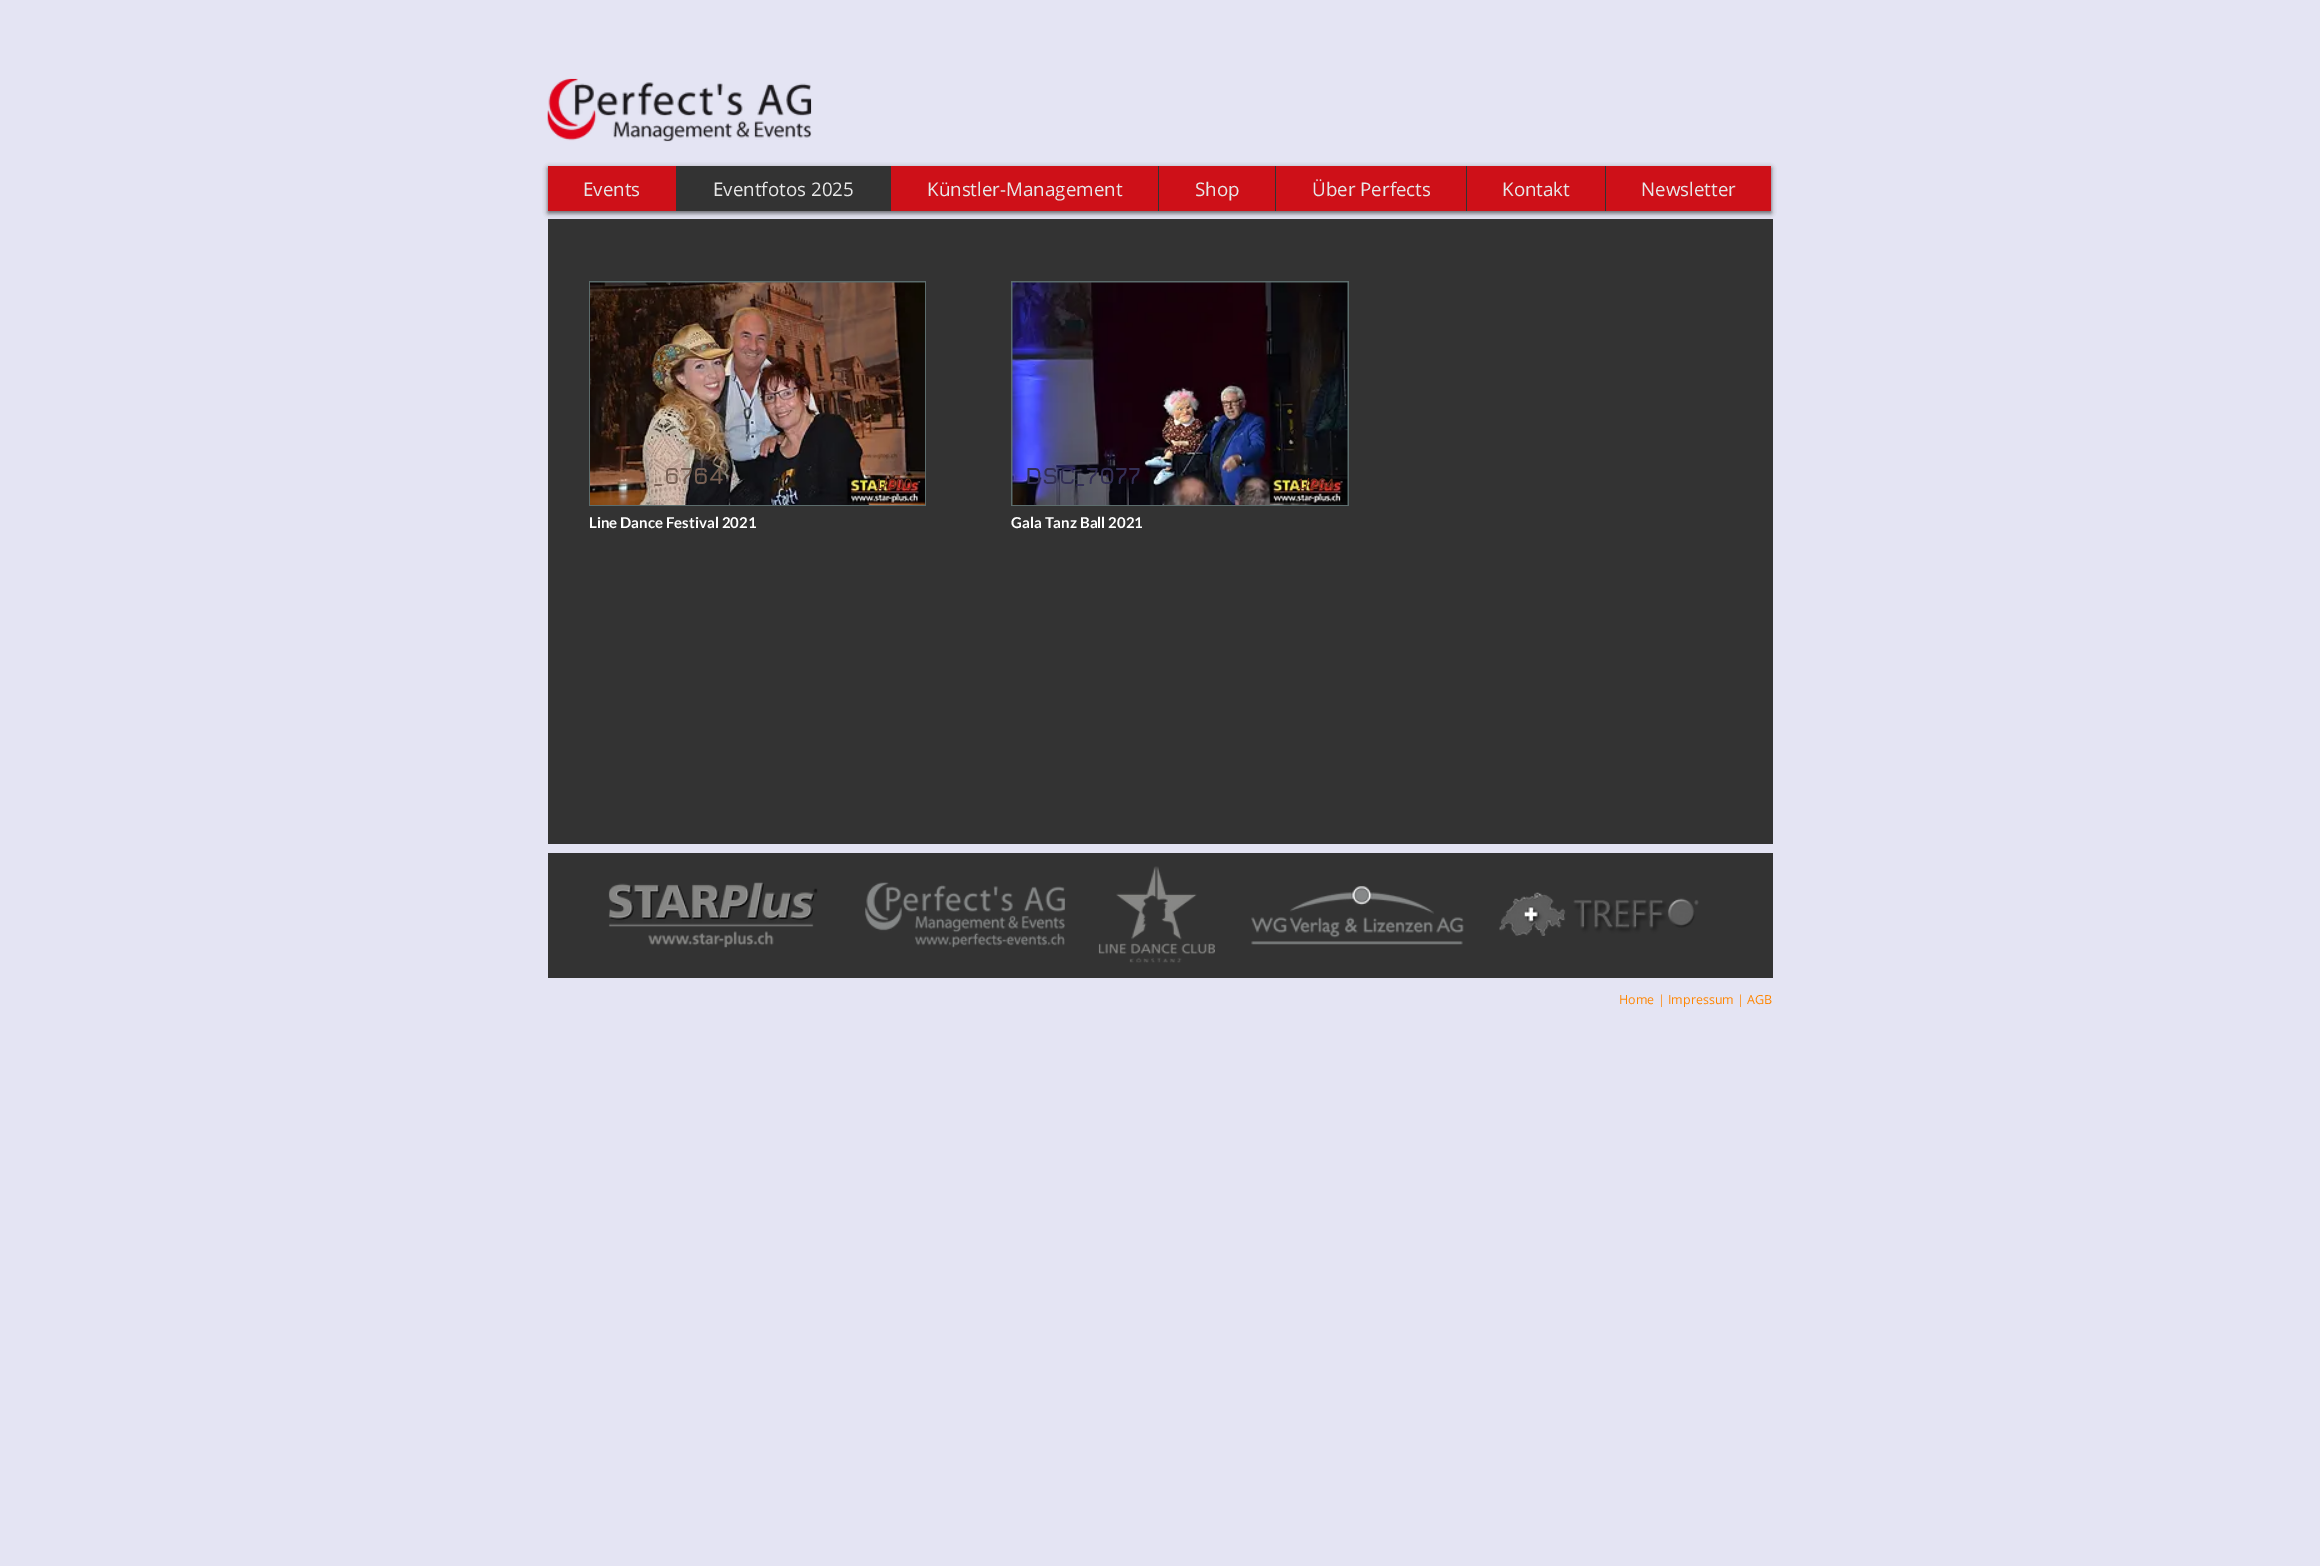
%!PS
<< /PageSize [2320 1566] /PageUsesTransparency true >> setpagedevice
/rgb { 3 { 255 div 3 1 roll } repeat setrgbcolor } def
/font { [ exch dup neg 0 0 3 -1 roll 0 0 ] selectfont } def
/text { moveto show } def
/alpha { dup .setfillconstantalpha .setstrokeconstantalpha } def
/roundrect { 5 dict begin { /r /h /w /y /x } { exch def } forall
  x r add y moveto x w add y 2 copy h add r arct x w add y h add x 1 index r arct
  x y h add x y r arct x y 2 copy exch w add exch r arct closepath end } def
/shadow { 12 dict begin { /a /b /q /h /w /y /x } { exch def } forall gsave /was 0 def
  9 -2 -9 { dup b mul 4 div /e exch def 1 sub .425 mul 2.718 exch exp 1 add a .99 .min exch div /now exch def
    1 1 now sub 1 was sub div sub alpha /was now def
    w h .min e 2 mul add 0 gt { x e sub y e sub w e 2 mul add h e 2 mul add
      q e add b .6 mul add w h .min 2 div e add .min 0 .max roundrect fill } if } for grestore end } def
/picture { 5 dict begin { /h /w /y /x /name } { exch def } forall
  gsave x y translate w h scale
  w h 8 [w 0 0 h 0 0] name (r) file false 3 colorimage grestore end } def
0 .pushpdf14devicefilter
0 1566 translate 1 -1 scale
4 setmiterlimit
228 228 243 rgb
0 0 2320 1566 rectfill
(img_01.rgb) 547 78 265 64 picture
0 0 0 rgb
548 168 1223 45 0 2.5 0.6 shadow
206 16 24 rgb
548 166 1223 45 rectfill
51 51 51 rgb
676 166 215 45 rectfill
1158 166 1 45 rectfill
1275 166 1 45 rectfill
1466 166 1 45 rectfill
1605 166 1 45 rectfill
548 219 1225 625 rectfill
92 109 109 rgb
589 281 337 225 rectfill
(img_02.rgb) 590 282 335 223 picture
1011 281 338 225 rectfill
(img_03.rgb) 1012 282 336 223 picture
51 51 51 rgb
548 853 1225 125 rectfill
(img_04.rgb) 608 882 210 66 picture
(img_05.rgb) 865 882 200 66 picture
(img_06.rgb) 1098 866 117 97 picture
(img_07.rgb) 1251 886 213 59 picture
(img_08.rgb) 1499 892 200 44 picture
/OpenSans-Regular 18.75 font
231 231 231 rgb
(Events) 583 196 text
(Eventfotos 2025) 713 196 text
(Künstler-Management) 927 196 text
(Shop) 1195 196 text
(Über Perfects) 1312 196 text
(Kontakt) 1502 196 text
(Newsletter) 1641 196 text
/Jura-Bold 23.75 font
120 97 85 rgb
(_6764) 653 484 text
/LiberationSans-Regular 15 font
111 54 34 rgb
(1/300) 875 489 text
/Jura-Bold 23.75 font
51 47 85 rgb
(DSC_7077) 1025 484 text
/LiberationSans-Regular 15 font
111 54 34 rgb
(1/264) 1297 489 text
/Lato-Bold 15 font
255 255 255 rgb
(Line Dance Festival 2021) 589 528 text
(Gala Tanz Ball 2021) 1011 528 text
/OpenSans-Regular 12.5 font
255 133 0 rgb
(Home | Impressum | AGB) 1619 1004 text
.poppdf14devicefilter showpage
